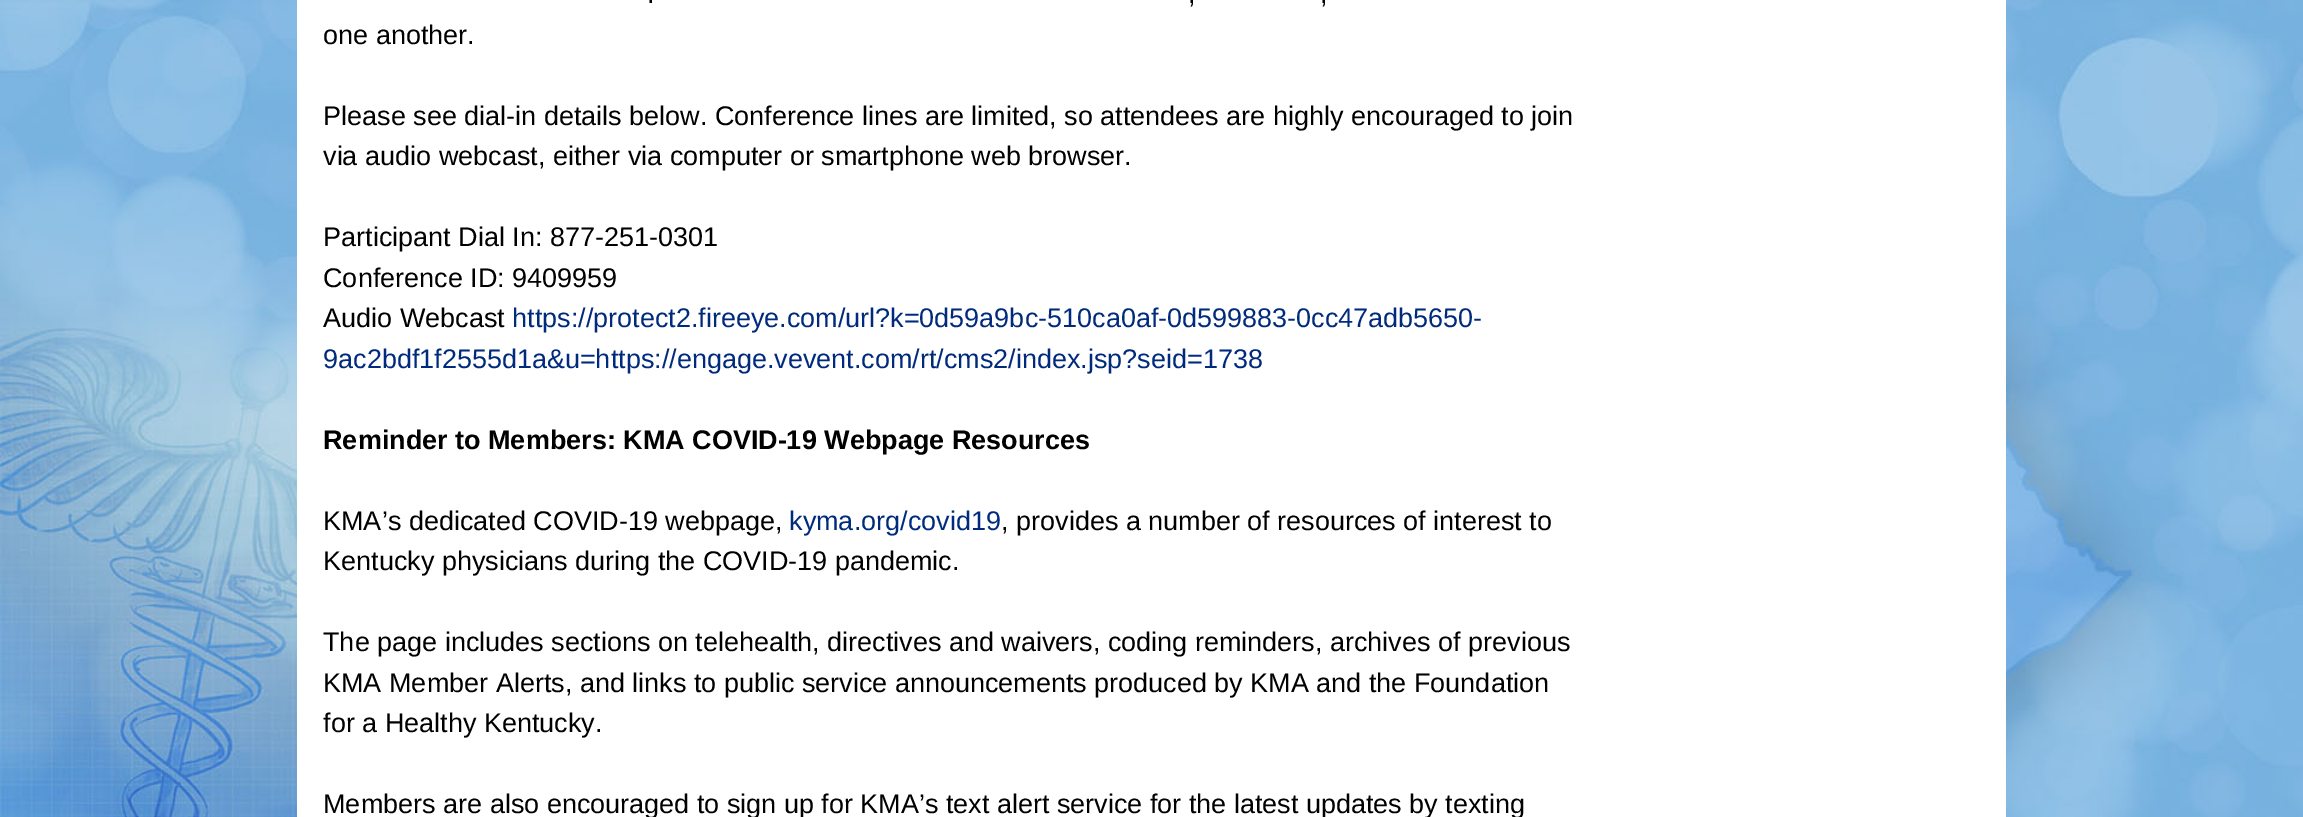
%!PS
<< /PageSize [2303 817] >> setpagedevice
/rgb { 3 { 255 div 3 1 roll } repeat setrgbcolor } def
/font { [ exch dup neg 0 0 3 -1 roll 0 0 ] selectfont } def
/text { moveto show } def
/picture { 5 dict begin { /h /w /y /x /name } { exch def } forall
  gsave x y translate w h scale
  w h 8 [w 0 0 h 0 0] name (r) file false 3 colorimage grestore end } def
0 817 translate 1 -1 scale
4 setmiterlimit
255 255 255 rgb
0 0 2303 817 rectfill
(img_01.rgb) 0 0 2303 817 picture
297 0 1709 817 rectfill
/LiberationSans-Regular 27 font
0 0 0 rgb
(.) 647 3 text
(,) 1188 3 text
(,) 1320 3 text
(one another.) 323 44 text
(Please see dial-in details below. Conference lines are limited, so attendees are highly encouraged to join) 323 125 text
(via audio webcast, either via computer or smartphone web browser.) 323 165 text
(Participant Dial In: 877-251-0301) 323 246 text
(Conference ID: 9409959) 323 287 text
(Audio Webcast) 323 327 text
0 43 125 rgb
(https://protect2.fireeye.com/url?k=0d59a9bc-510ca0af-0d599883-0cc47adb5650-) 512 327 text
(9ac2bdf1f2555d1a&u=https://engage.vevent.com/rt/cms2/index.jsp?seid=1738) 323 368 text
/LiberationSans-Bold 27 font
0 0 0 rgb
(Reminder to Members: KMA COVID-19 Webpage Resources) 323 449 text
/LiberationSans-Regular 27 font
(KMA’s dedicated COVID-19 webpage,) 323 530 text
0 43 125 rgb
(kyma.org/covid19) 789 530 text
0 0 0 rgb
(, provides a number of resources of interest to) 1001 530 text
(Kentucky physicians during the COVID-19 pandemic.) 323 570 text
(The page includes sections on telehealth, directives and waivers, coding reminders, archives of previous) 323 651 text
(KMA Member Alerts, and links to public service announcements produced by KMA and the Foundation) 323 692 text
(for a Healthy Kentucky.) 323 732 text
(Members are also encouraged to sign up for KMA’s text alert service for the latest updates by texting) 323 813 text
showpage
